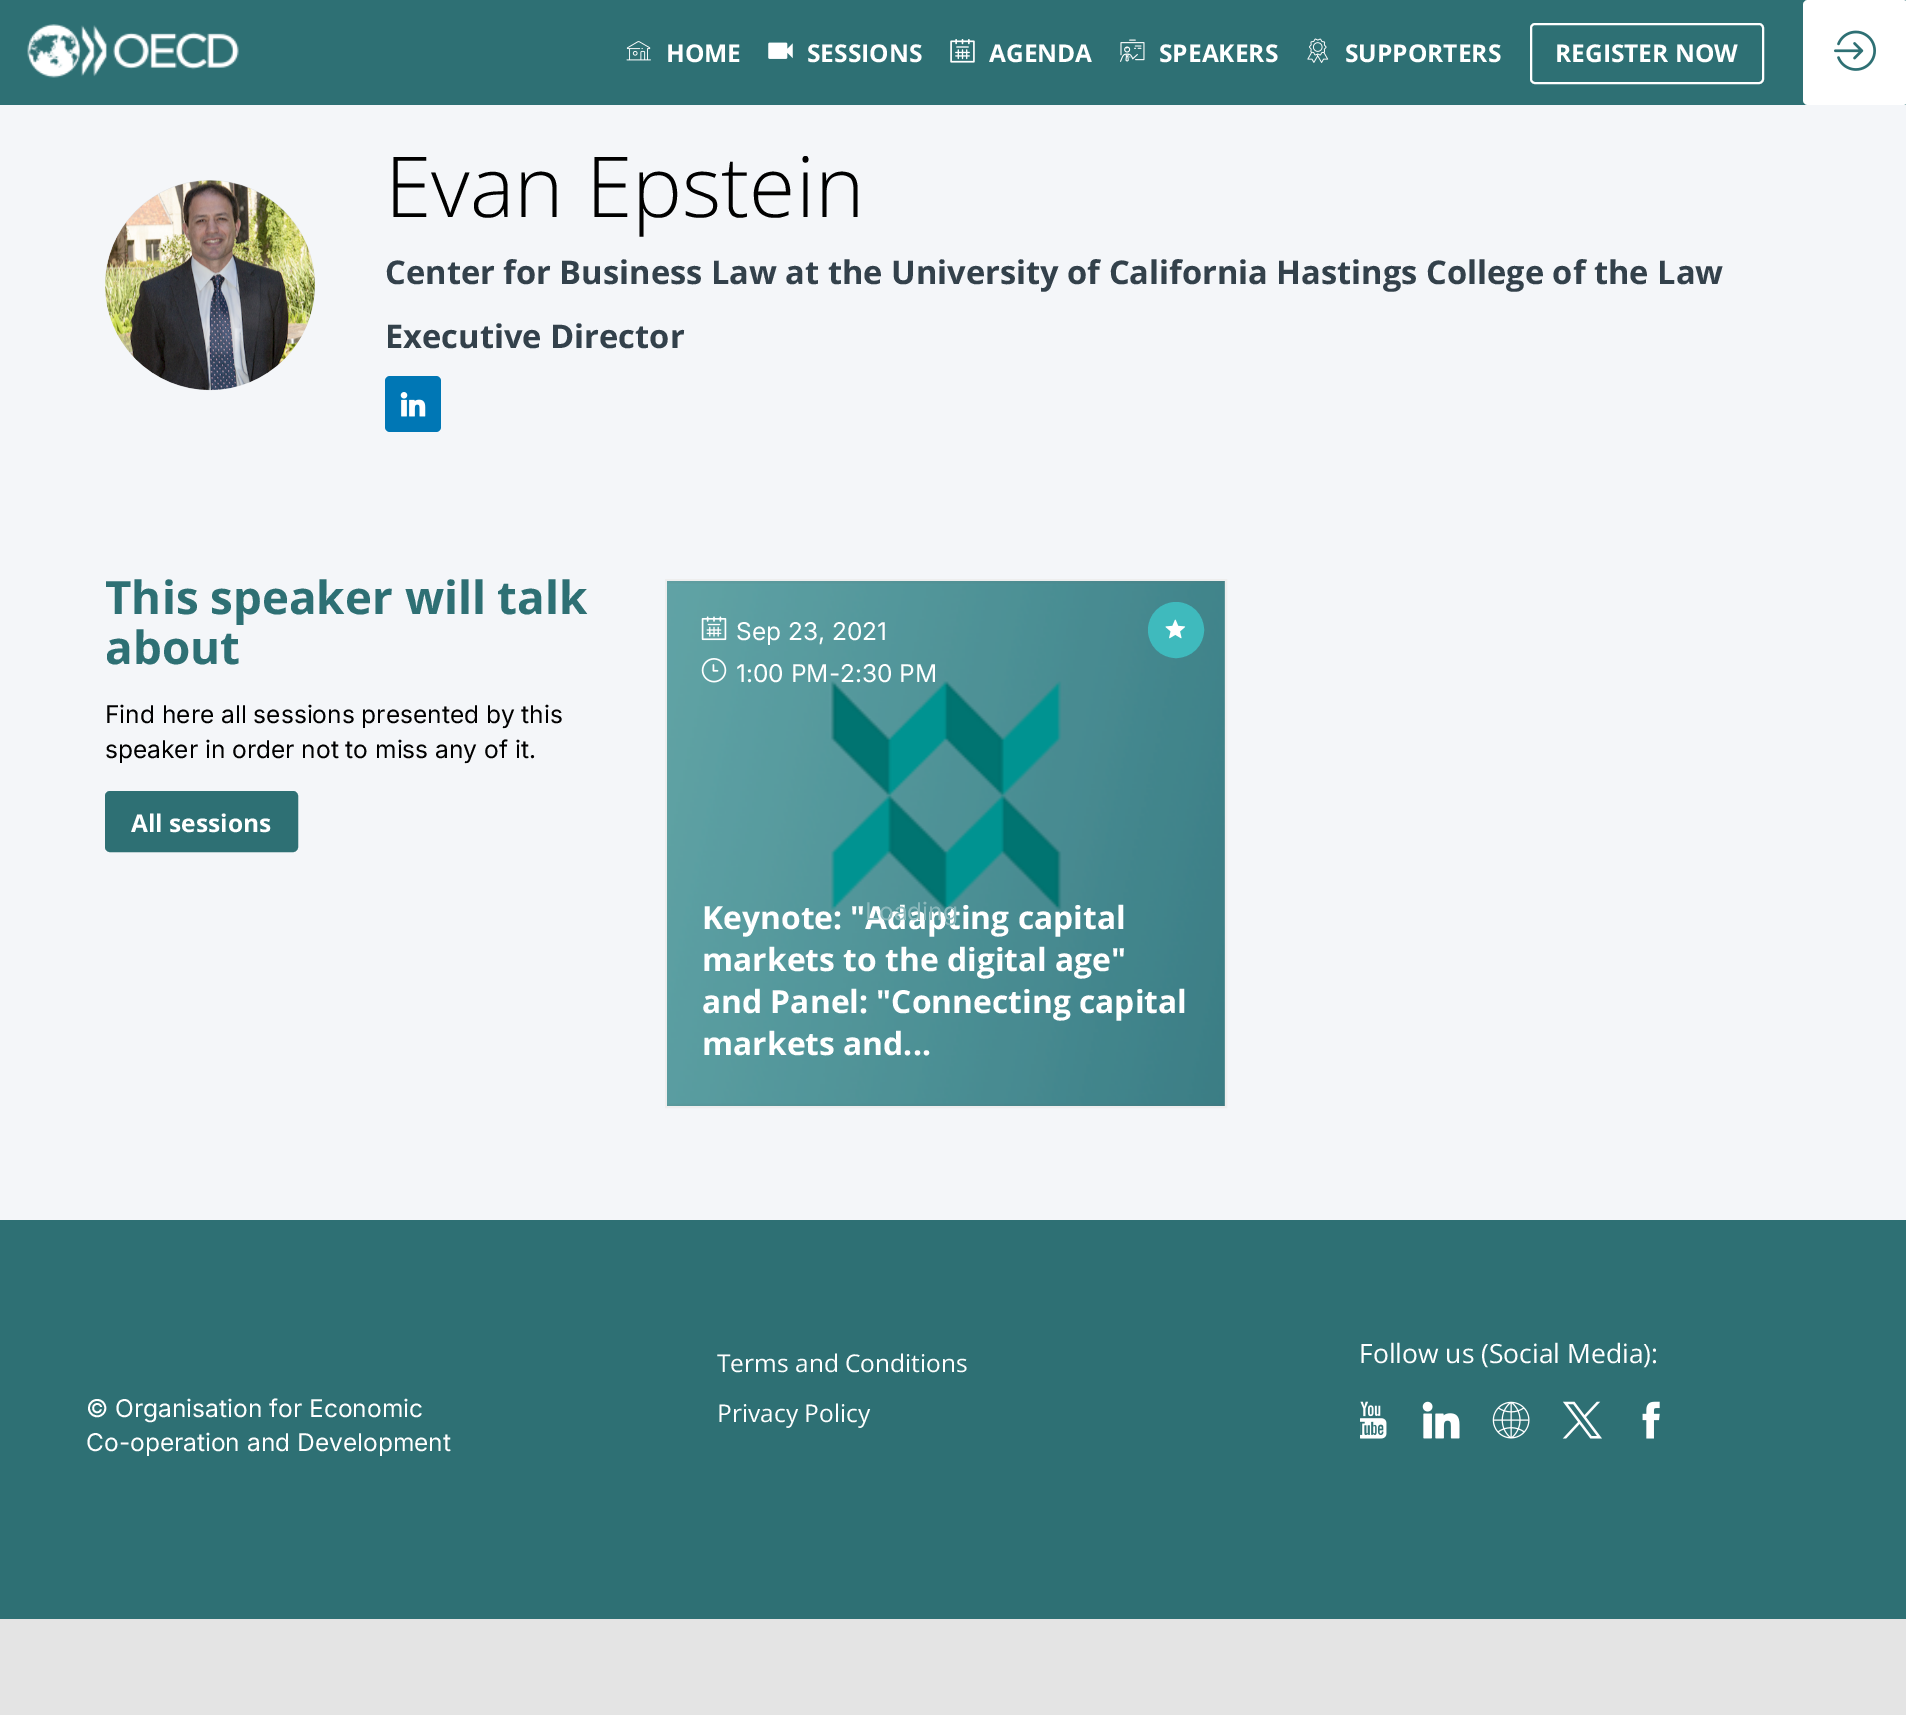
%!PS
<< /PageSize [1906 1715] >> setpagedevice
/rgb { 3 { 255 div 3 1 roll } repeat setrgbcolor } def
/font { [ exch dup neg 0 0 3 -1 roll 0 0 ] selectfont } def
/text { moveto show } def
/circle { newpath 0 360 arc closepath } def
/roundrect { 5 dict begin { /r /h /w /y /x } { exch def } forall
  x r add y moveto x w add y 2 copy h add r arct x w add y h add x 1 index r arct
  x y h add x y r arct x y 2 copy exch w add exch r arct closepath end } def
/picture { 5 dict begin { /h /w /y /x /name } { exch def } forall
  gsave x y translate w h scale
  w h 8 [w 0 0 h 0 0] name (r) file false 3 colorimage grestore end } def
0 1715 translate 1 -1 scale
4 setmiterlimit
228 228 228 rgb
0 0 1906 1715 rectfill
46 112 116 rgb
0 0 1906 105 rectfill
(img_01.rgb) 27 24 212 54 picture
(img_02.rgb) 626 41 25 20 picture
(img_03.rgb) 768 42 25 17 picture
(img_04.rgb) 950 39 25 24 picture
(img_05.rgb) 1120 39 25 23 picture
(img_06.rgb) 1307 38 22 25 picture
255 255 255 rgb
2 setlinewidth
1531 24 232 59 4 roundrect stroke
1804 1 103 103 4 roundrect gsave fill grestore
stroke
(img_07.rgb) 1834 30 42 41 picture
244 246 249 rgb
0 105 1906 1115 rectfill
225 227 229 rgb
210 285 105 circle fill
(img_08.rgb) 105 180 210 211 picture
0 119 181 rgb
385 376 56 56 5 roundrect fill
(img_09.rgb) 400 392 26 25 picture
46 112 116 rgb
106 792 191 59 4 roundrect gsave fill grestore
stroke
238 238 238 rgb
666 580 560 527 rectstroke
(img_10.rgb) 667 581 558 525 picture
(img_11.rgb) 701 616 26 25 picture
(img_12.rgb) 701 658 26 25 picture
63 186 189 rgb
1176 630 27 circle gsave fill grestore
stroke
(img_13.rgb) 1165 619 21 20 picture
46 112 116 rgb
0 1220 1906 399 rectfill
(img_14.rgb) 1360 1401 27 38 picture
(img_15.rgb) 1422 1401 38 38 picture
(img_16.rgb) 1492 1401 38 38 picture
(img_17.rgb) 1562 1401 40 38 picture
(img_18.rgb) 1642 1401 18 38 picture
/OpenSans-Bold 24.5 font
255 255 255 rgb
(HOME) 666 62 text
(SESSIONS) 807 62 text
(AGENDA) 989 62 text
(SPEAKERS) 1159 62 text
(SUPPORTERS) 1345 62 text
(REGISTER NOW) 1555 62 text
/OpenSans-Light 84 font
0 0 0 rgb
(Evan Epstein) 385 217 text
/OpenSans-Bold 32.65 font
51 65 75 rgb
(Center for Business Law at the University of California Hastings College of the Law) 385 284 text
(Executive Director) 385 348 text
/OpenSans-Bold 45.75 font
46 112 116 rgb
(This speaker will talk) 105 614 text
(about) 105 664 text
/Inter-Regular 24.5 font
0 0 0 rgb
(Find here all sessions presented by this) 105 723 text
(speaker in order not to miss any of it.) 105 758 text
/OpenSans-Bold 24.5 font
255 255 255 rgb
(All sessions) 131 832 text
/Inter-Regular 24.5 font
(Sep 23, 2021) 736 640 text
(1:00 PM-2:30 PM) 736 682 text
/OpenSans-Bold 31.8 font
(Keynote: "Adapting capital) 702 929 text
(markets to the digital age") 702 971 text
(and Panel: "Connecting capital) 702 1013 text
(markets and...) 702 1055 text
/Inter-Regular 24.5 font
(© Organisation for Economic) 86 1417 text
(Co-operation and Development) 86 1451 text
/OpenSans-Regular 24.5 font
(Terms and Conditions) 717 1372 text
(Privacy Policy) 717 1422 text
/OpenSans-Regular 26.5 font
(Follow us \(Social Media\):) 1359 1363 text
/Inter-Regular 24.5 font
139 184 187 rgb
(Loading) 865 920 text
showpage
